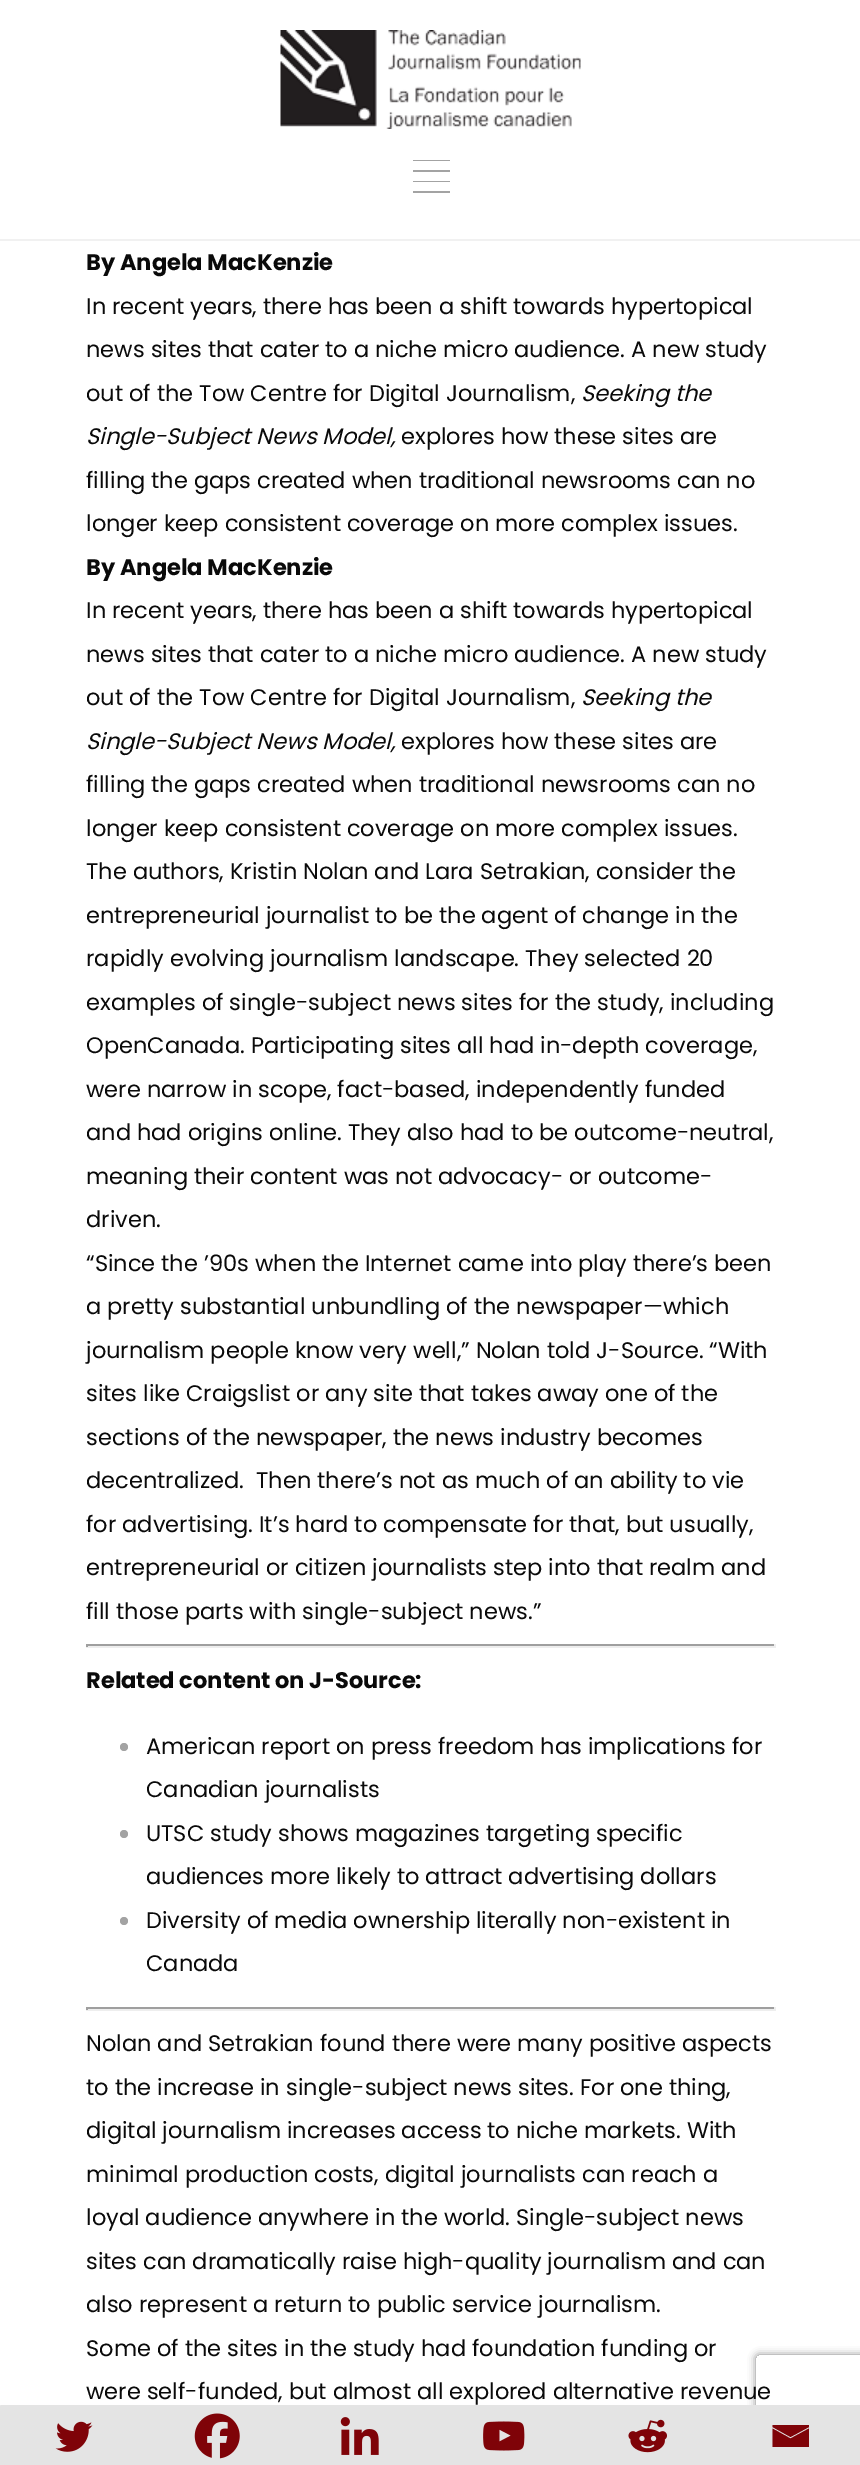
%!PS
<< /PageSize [860 2465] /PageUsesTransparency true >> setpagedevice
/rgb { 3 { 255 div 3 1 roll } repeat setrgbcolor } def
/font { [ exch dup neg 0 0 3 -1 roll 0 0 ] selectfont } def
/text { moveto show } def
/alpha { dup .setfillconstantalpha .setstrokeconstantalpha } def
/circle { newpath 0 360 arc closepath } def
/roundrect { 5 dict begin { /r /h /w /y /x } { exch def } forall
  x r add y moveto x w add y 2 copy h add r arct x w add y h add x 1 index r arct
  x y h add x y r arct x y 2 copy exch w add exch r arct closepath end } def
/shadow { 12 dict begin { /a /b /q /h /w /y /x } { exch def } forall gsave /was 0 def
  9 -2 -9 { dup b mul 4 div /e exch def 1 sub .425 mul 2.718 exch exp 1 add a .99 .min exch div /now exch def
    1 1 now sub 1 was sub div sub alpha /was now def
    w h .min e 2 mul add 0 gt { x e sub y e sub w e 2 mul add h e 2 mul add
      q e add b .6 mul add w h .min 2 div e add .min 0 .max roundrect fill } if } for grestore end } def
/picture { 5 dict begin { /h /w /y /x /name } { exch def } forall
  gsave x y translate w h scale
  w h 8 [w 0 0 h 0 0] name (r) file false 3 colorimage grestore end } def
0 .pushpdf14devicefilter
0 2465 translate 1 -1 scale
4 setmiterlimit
255 255 255 rgb
0 0 860 2465 rectfill
241 241 241 rgb
0 239 860 2 rectfill
(img_01.rgb) 280 30 301 99 picture
163 163 163 rgb
413 160 37 1 rectfill
413 170 37 2 rectfill
413 181 37 1 rectfill
413 191 37 2 rectfill
159 159 159 rgb
86 1644 690 2 rectfill
238 238 238 rgb
774 1644 2 3 rectfill
86 1646 690 2 rectfill
159 159 159 rgb
86 1644 2 3 rectfill
163 163 163 rgb
124 1747 4 circle fill
124 1834 4 circle fill
124 1921 4 circle fill
159 159 159 rgb
86 2007 690 2 rectfill
238 238 238 rgb
774 2007 2 3 rectfill
86 2009 690 2 rectfill
159 159 159 rgb
86 2007 2 3 rectfill
228 228 228 rgb
1 2406 145 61 0.5 roundrect gsave fill grestore
2 setlinewidth
stroke
(img_02.rgb) 55 2421 38 31 picture
145 2406 144 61 0.5 roundrect gsave fill grestore
stroke
(img_03.rgb) 194 2413 46 46 picture
288 2406 145 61 0.5 roundrect gsave fill grestore
stroke
(img_04.rgb) 340 2417 39 38 picture
432 2406 145 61 0.5 roundrect gsave fill grestore
stroke
(img_05.rgb) 483 2421 42 30 picture
576 2406 143 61 0.5 roundrect gsave fill grestore
stroke
(img_06.rgb) 628 2419 39 34 picture
gsave
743 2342 moveto 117 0 rlineto 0 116 rlineto -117 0 rlineto closepath 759 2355 moveto 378 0 rlineto 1.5 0 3 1.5 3 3 rcurveto 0 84 rlineto 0 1.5 -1.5 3 -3 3 rcurveto -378 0 rlineto -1.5 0 -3 -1.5 -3 -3 rcurveto 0 -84 rlineto 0 -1.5 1.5 -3 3 -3 rcurveto closepath eoclip newpath
128 128 128 rgb
756 2355 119 90 3 4 1 shadow
grestore
717 2405 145 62 1.5 roundrect fill
127 3 8 rgb
770.5 2425 moveto 38.5 0 rlineto 0 2 rlineto -18.5 10 rlineto -18 -10 rlineto 0 -2 rlineto 772.5 2428.5 moveto 18 10 rlineto 18.5 -10 rlineto 0 18.5 rlineto -36.5 0 rlineto 0 -18.5 rlineto fill
/Poppins-Bold 22.5 font
10 10 10 rgb
(By Angela MacKenzie) 86 270 text
/Poppins-Regular 22.5 font
(In recent years, there has been a shift towards hypertopical) 86 314 text
(news sites that cater to a niche micro audience. A new study) 86 357 text
(out of the Tow Centre for Digital Journalism,) 86 401 text
/Poppins-Italic 22.5 font
(Seeking the) 581 401 text
(Single-Subject News Model,) 86 444 text
/Poppins-Regular 22.5 font
(explores how these sites are) 401 444 text
(filling the gaps created when traditional newsrooms can no) 86 488 text
(longer keep consistent coverage on more complex issues.) 86 531 text
/Poppins-Bold 22.5 font
(By Angela MacKenzie) 86 575 text
/Poppins-Regular 22.5 font
(In recent years, there has been a shift towards hypertopical) 86 618 text
(news sites that cater to a niche micro audience. A new study) 86 662 text
(out of the Tow Centre for Digital Journalism,) 86 705 text
/Poppins-Italic 22.5 font
(Seeking the) 581 705 text
(Single-Subject News Model,) 86 749 text
/Poppins-Regular 22.5 font
(explores how these sites are) 401 749 text
(filling the gaps created when traditional newsrooms can no) 86 792 text
(longer keep consistent coverage on more complex issues.) 86 836 text
(The authors, Kristin Nolan and Lara Setrakian, consider the) 86 879 text
(entrepreneurial journalist to be the agent of change in the) 86 923 text
(rapidly evolving journalism landscape. They selected 20) 86 966 text
(examples of single-subject news sites for the study, including) 86 1010 text
(OpenCanada. Participating sites all had in-depth coverage,) 86 1053 text
(were narrow in scope, fact-based, independently funded) 86 1097 text
(and had origins online. They also had to be outcome-neutral,) 86 1140 text
(meaning their content was not advocacy- or outcome-) 86 1184 text
(driven.) 86 1227 text
(“Since the ’90s when the Internet came into play there’s been) 86 1271 text
(a pretty substantial unbundling of the newspaper—which) 86 1314 text
(journalism people know very well,” Nolan told J-Source. “With) 86 1358 text
(sites like Craigslist or any site that takes away one of the) 86 1401 text
(sections of the newspaper, the news industry becomes) 86 1445 text
(decentralized.  Then there’s not as much of an ability to vie) 86 1488 text
(for advertising. It’s hard to compensate for that, but usually,) 86 1532 text
(entrepreneurial or citizen journalists step into that realm and) 86 1575 text
(fill those parts with single-subject news.”) 86 1619 text
/Poppins-Bold 22.5 font
(Related content on J-Source:) 86 1688 text
/Poppins-Regular 22.5 font
(American report on press freedom has implications for) 146 1754 text
(Canadian journalists) 146 1797 text
(UTSC study shows magazines targeting specific) 146 1841 text
(audiences more likely to attract advertising dollars) 146 1884 text
(Diversity of media ownership literally non-existent in) 146 1928 text
(Canada) 146 1971 text
(Nolan and Setrakian found there were many positive aspects) 86 2051 text
(to the increase in single-subject news sites. For one thing,) 86 2095 text
(digital journalism increases access to niche markets. With) 86 2138 text
(minimal production costs, digital journalists can reach a) 86 2182 text
(loyal audience anywhere in the world. Single-subject news) 86 2225 text
(sites can dramatically raise high-quality journalism and can) 86 2269 text
(also represent a return to public service journalism.) 86 2312 text
(Some of the sites in the study had foundation funding or) 86 2356 text
(were self-funded, but almost all explored alternative revenue) 86 2399 text
.poppdf14devicefilter showpage
